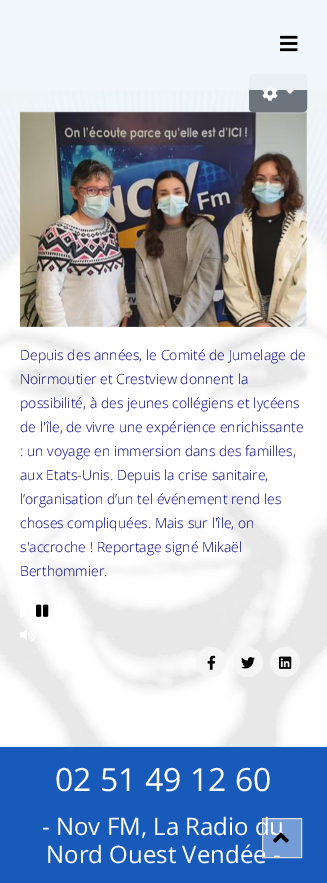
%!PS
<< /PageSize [327 883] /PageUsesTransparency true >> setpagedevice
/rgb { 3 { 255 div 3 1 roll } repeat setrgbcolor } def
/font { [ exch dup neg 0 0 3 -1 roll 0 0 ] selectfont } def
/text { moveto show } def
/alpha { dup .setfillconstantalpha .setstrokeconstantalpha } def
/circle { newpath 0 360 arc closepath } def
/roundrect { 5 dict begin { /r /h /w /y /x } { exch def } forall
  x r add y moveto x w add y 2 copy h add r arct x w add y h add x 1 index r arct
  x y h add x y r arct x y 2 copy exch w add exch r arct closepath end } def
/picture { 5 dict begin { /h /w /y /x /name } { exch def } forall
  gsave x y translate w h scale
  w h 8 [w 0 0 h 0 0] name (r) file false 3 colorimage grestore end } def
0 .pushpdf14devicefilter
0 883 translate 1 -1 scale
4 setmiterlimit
255 255 255 rgb
0 0 327 883 rectfill
(img_01.rgb) 0 0 327 747 picture
(img_04.rgb) 20 111 287 216 picture
108 117 125 rgb
249.5 74.5 57 37 3.5 roundrect gsave fill grestore
stroke
(img_03.rgb) 262 85 16 16 picture
0.95 alpha
241 246 250 rgb
0 0 327 90 rectfill
1 alpha
(img_02.rgb) 280 35 18 17 picture
255 255 255 rgb
286 90 moveto 8 0 rlineto -4 4 rlineto closepath fill
(img_05.rgb) 20 607 6 11 picture
(img_06.rgb) 36 604 13 13 picture
(img_07.rgb) 20 629 16 12 picture
245 245 245 rgb
211 662 15 circle fill
(img_08.rgb) 207 655 9 15 picture
248 662 15 circle fill
(img_09.rgb) 241 657 14 12 picture
285 662 15 circle fill
(img_10.rgb) 279 656 13 13 picture
23 90 186 rgb
0 747 327 136 rectfill
/OpenSans-Light 14 font
0 0 128 rgb
(Depuis des années, le Comité de Jumelage de) 20 360 text
(Noirmoutier et Crestview donnent la) 20 384 text
(possibilité, à des jeunes collégiens et lycéens) 20 408 text
(de l'île, de vivre une expérience enrichissante) 20 432 text
(: un voyage en immersion dans des familles,) 20 456 text
(aux Etats-Unis. Depuis la crise sanitaire,) 20 480 text
(l’organisation d’un tel événement rend les) 20 504 text
(choses compliquées. Mais sur l'île, on) 20 528 text
(s'accroche ! Reportage signé Mikaël) 20 552 text
(Berthommier.) 20 576 text
/OpenSans-Regular 32 font
255 255 255 rgb
(02 51 49 12 60) 55 791 text
/OpenSans-Regular 24 font
(- Nov FM, La Radio du) 42 835 text
(Nord Ouest Vendée -) 46 863 text
0.4 alpha
262.5 818.5 moveto 39 0 rlineto 0 39 rlineto -39 0 rlineto closepath fill
1 alpha
221 221 221 rgb
262.5 818.5 moveto 39 0 rlineto 0 39 rlineto -39 0 rlineto closepath stroke
(img_11.rgb) 273 832 16 11 picture
.poppdf14devicefilter showpage
